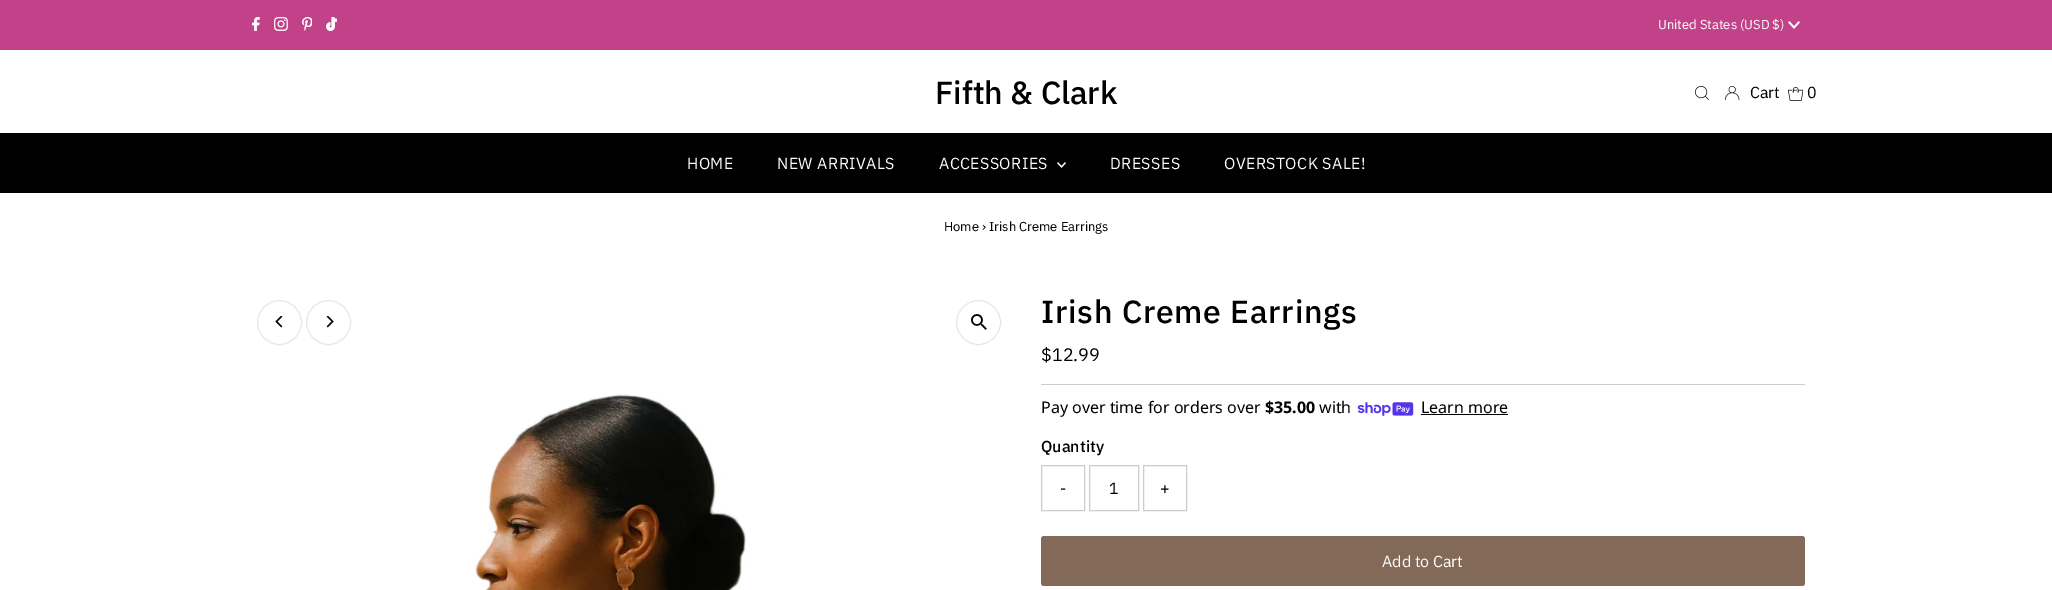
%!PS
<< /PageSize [2052 590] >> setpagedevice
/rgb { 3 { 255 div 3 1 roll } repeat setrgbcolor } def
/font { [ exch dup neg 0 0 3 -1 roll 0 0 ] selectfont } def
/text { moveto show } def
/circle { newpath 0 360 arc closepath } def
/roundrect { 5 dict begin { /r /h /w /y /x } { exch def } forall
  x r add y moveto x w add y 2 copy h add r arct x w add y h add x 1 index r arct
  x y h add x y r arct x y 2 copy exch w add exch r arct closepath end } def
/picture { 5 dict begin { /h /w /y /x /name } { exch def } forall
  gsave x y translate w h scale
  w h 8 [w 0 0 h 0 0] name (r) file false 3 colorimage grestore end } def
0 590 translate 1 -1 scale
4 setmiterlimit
255 255 255 rgb
0 0 2052 590 rectfill
194 66 138 rgb
0 0 2052 50 rectfill
(img_01.rgb) 252 17 8 14 picture
(img_02.rgb) 274 17 14 14 picture
(img_03.rgb) 302 17 10 14 picture
(img_04.rgb) 326 17 11 14 picture
(img_05.rgb) 1788 21 12 8 picture
(img_06.rgb) 1695 86 14 14 picture
(img_07.rgb) 1725 86 15 14 picture
(img_08.rgb) 1788 87 15 14 picture
0 0 0 rgb
0 133 2052 60 rectfill
(img_09.rgb) 1057 162 9 6 picture
231 231 231 rgb
279.5 322.5 22 circle stroke
(img_10.rgb) 275 316 8 12 picture
328.5 322.5 22 circle stroke
(img_11.rgb) 326 316 8 12 picture
978.5 322.5 22 circle stroke
(img_12.rgb) 971 314 16 16 picture
(img_13.rgb) 475 394 271 196 picture
204 204 204 rgb
1041 384 764 1 rectfill
(img_14.rgb) 1357 402 57 14 picture
0 0 0 rgb
1421 414 87 1 rectfill
204 204 204 rgb
1041.5 465.5 43 45 rectstroke
1089.5 465.5 49 45 rectstroke
1143.5 465.5 43 45 rectstroke
131 105 87 rgb
1041 536 764 50 3 roundrect fill
/IBMPlexSans-Regular 13 font
255 255 255 rgb
(United States \(USD $\)) 1658 29 text
/IBMPlexSans-Medium 32 font
0 0 0 rgb
(Fifth & Clark) 935 104 text
/IBMPlexSans-Regular 16 font
(Cart) 1750 98 text
(0) 1807 98 text
255 255 255 rgb
687 169 moveto 0.4 0 (HOME) ashow
777 169 moveto 0.4 0 (NEW ARRIVALS) ashow
939 169 moveto 0.4 0 (ACCESSORIES) ashow
1110 169 moveto 0.4 0 (DRESSES) ashow
1224 169 moveto 0.4 0 (OVERSTOCK SALE!) ashow
/IBMPlexSans-Regular 13 font
0 0 0 rgb
(Home › Irish Creme Earrings) 944 231 text
/IBMPlexSans-Medium 32 font
1041 323 moveto 0.8 0 (Irish Creme Earrings) ashow
/IBMPlexSans-Regular 18 font
($12.99) 1041 361 text
/NotoSans-Regular 16 font
(Pay over time for orders over) 1041 413 text
/NotoSans-Bold 16 font
($35.00) 1265 413 text
/NotoSans-Regular 16 font
(with) 1319 413 text
(Learn more) 1421 413 text
/IBMPlexSans-Medium 16 font
(Quantity) 1041 452 text
/IBMPlexSans-Regular 16 font
(-) 1060 494 text
(1) 1109 494 text
(+) 1160 494 text
255 255 255 rgb
(Add to Cart) 1382 567 text
showpage
